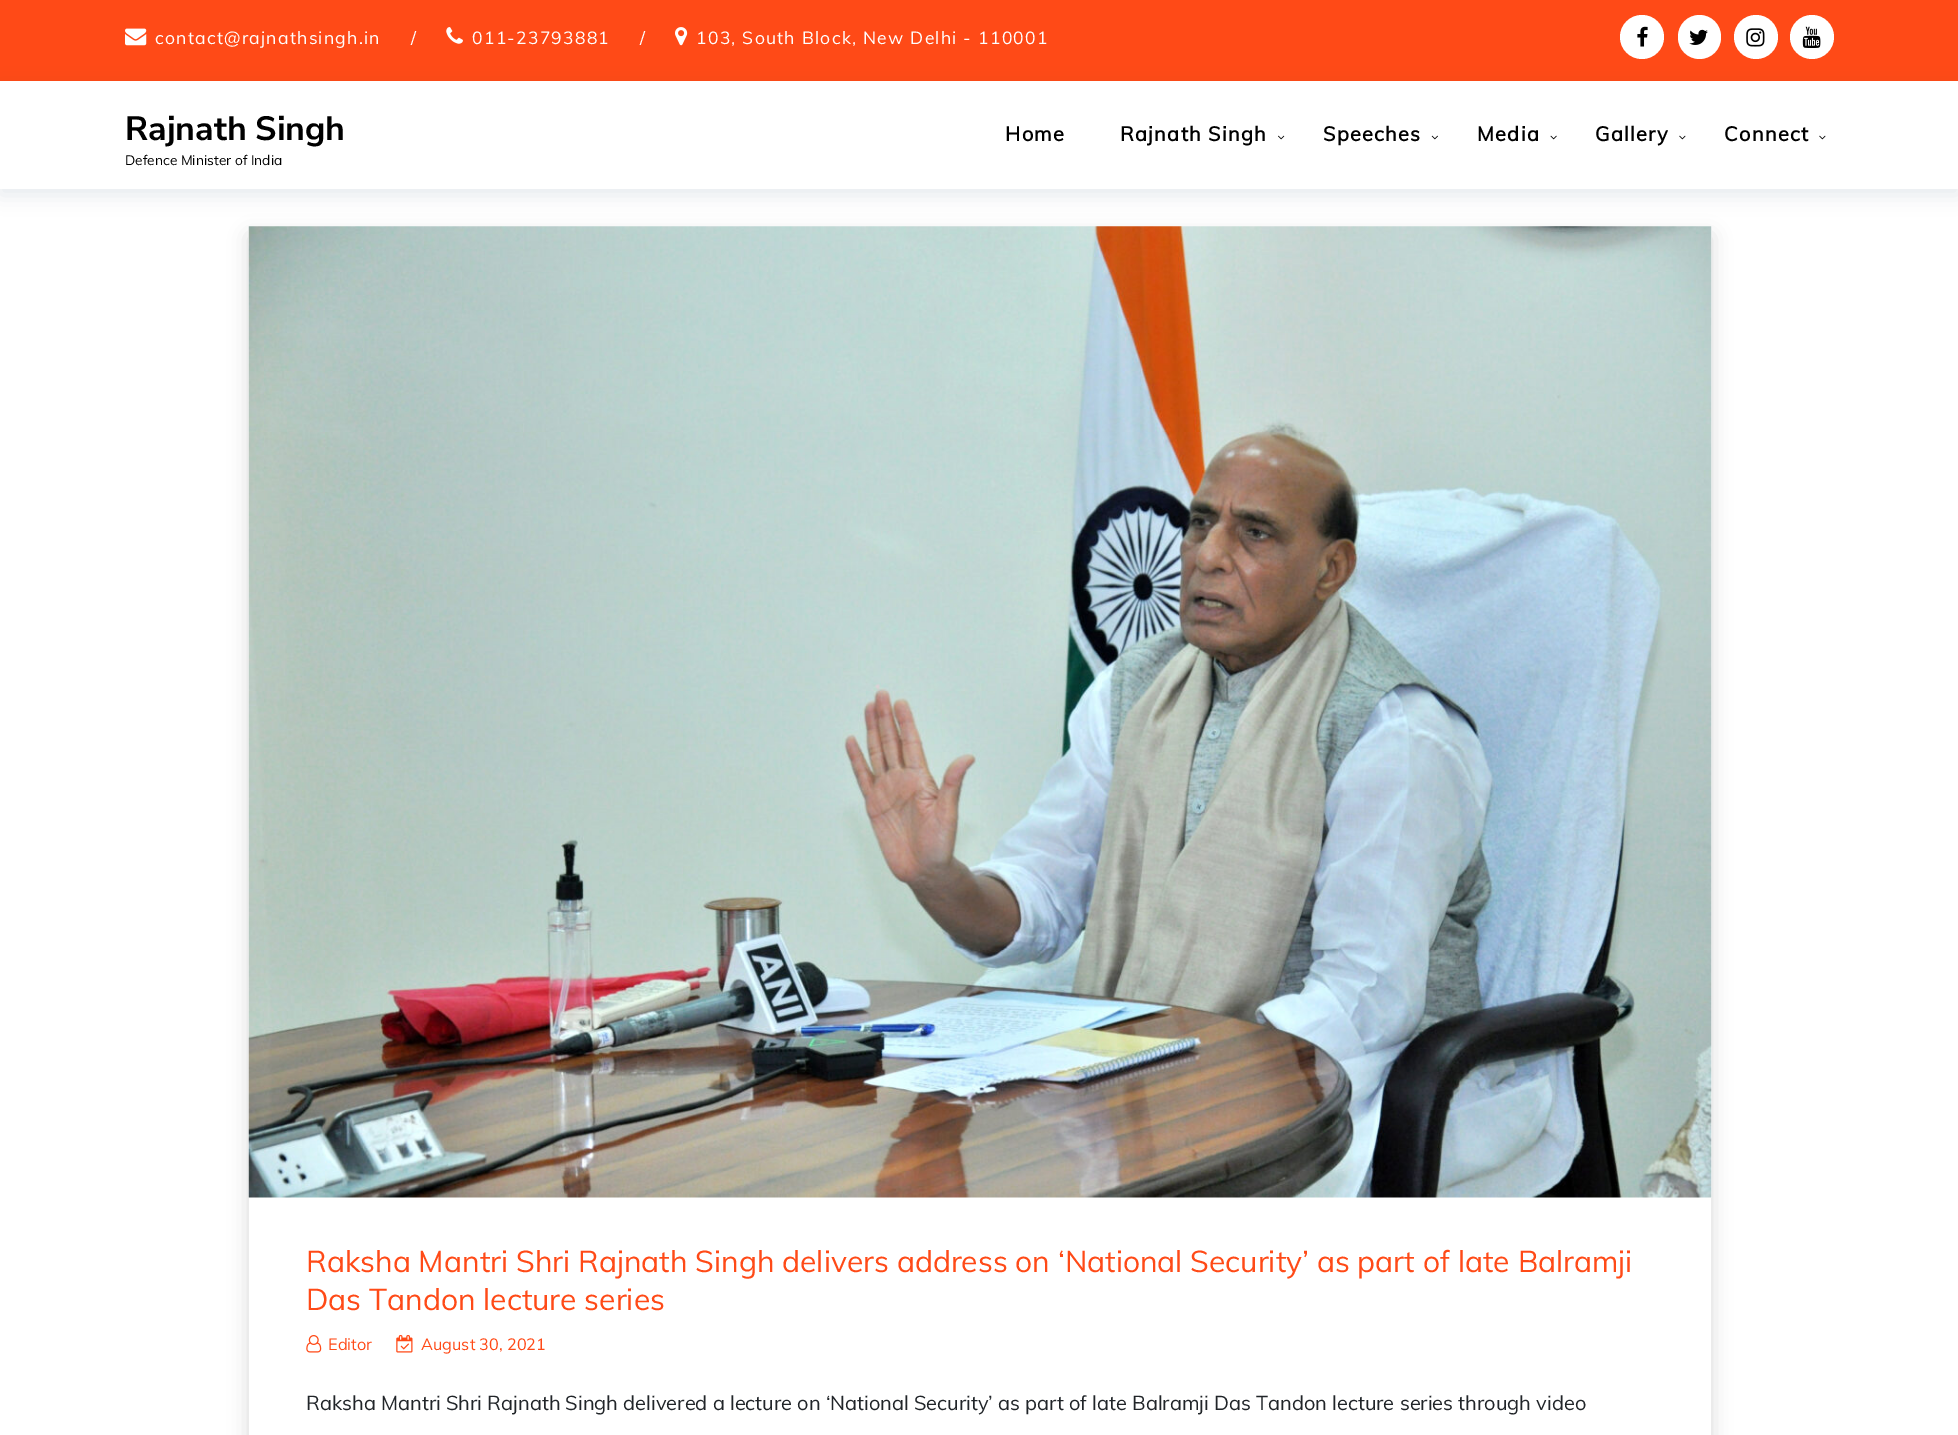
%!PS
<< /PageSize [1958 1435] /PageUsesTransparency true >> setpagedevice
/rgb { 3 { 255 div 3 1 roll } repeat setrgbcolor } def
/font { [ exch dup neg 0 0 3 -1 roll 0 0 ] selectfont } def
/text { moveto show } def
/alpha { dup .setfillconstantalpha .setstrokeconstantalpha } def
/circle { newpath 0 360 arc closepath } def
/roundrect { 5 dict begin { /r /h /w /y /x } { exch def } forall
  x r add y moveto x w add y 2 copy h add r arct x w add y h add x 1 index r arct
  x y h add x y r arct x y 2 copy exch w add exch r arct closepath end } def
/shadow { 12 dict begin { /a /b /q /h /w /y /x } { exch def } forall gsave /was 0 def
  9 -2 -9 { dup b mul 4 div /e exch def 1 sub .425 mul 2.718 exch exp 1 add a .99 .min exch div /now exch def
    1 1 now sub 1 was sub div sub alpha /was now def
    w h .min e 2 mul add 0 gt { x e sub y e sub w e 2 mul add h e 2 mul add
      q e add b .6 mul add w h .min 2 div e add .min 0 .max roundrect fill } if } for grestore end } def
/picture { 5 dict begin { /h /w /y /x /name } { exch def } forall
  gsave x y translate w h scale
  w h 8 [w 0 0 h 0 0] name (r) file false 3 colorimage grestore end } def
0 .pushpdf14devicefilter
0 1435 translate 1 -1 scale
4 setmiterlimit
255 255 255 rgb
0 0 1958 1435 rectfill
255 74 23 rgb
0 0 1958 81 rectfill
(img_01.rgb) 125 28 22 18 picture
(img_02.rgb) 446 27 17 17 picture
(img_03.rgb) 675 27 13 19 picture
255 255 255 rgb
1642 37 22 circle fill
(img_04.rgb) 1637 26 11 21 picture
1678 15 43 44 21.5 roundrect fill
(img_05.rgb) 1689 29 19 16 picture
1756 37 22 circle fill
(img_06.rgb) 1746 28 19 19 picture
1812 37 22 circle fill
(img_07.rgb) 1802 26 19 22 picture
0 33 85 rgb
0 88 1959 107 0 9.5 0.1 shadow
255 255 255 rgb
0 81 1958 108 rectfill
(img_08.rgb) 1278 135 7 5 picture
(img_09.rgb) 1431 135 7 5 picture
(img_10.rgb) 1550 135 7 5 picture
(img_11.rgb) 1679 135 7 5 picture
(img_11.rgb) 1819 135 7 5 picture
gsave
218 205 moveto 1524 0 rlineto 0 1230 rlineto -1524 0 rlineto closepath 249 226 moveto 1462 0 rlineto 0 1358 rlineto -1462 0 rlineto closepath eoclip newpath
0 0 0 rgb
249 236 1462 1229 0 10 0.15 shadow
grestore
(img_12.rgb) 248 226 1464 972 picture
(img_13.rgb) 306 1335 16 18 picture
(img_14.rgb) 396 1335 17 18 picture
/Muli-Regular 17.5 font
155 44 moveto 1.25 0 (contact@rajnathsingh.in) ashow
(/) 411 44 text
472 44 moveto 1.25 0 (011-23793881) ashow
(/) 640 44 text
696 44 moveto 1.25 0 (103, South Block, New Delhi - 110001) ashow
/NunitoSans-Bold 33.75 font
0 0 0 rgb
(Rajnath Singh) 125 140 text
/Muli-Regular 13.75 font
(Defence Minister of India) 125 165 text
/Muli-Bold 20 font
1005 141 moveto 1.25 0 (Home) ashow
1120 141 moveto 1.25 0 (Rajnath Singh) ashow
1323 141 moveto 1.25 0 (Speeches) ashow
1477 141 moveto 1.25 0 (Media) ashow
1595 141 moveto 1.25 0 (Gallery) ashow
1724 141 moveto 1.25 0 (Connect) ashow
/Muli-Regular 30 font
255 74 23 rgb
(Raksha Mantri Shri Rajnath Singh delivers address on ‘National Security’ as part of late Balramji) 306 1272 text
(Das Tandon lecture series) 306 1310 text
/Muli-Regular 16.25 font
(Editor) 328 1350 text
(August 30, 2021) 421 1350 text
/Muli-Regular 20 font
33 37 41 rgb
(Raksha Mantri Shri Rajnath Singh delivered a lecture on ‘National Security’ as part of late Balramji Das Tandon lecture series through video) 306 1410 text
.poppdf14devicefilter showpage
